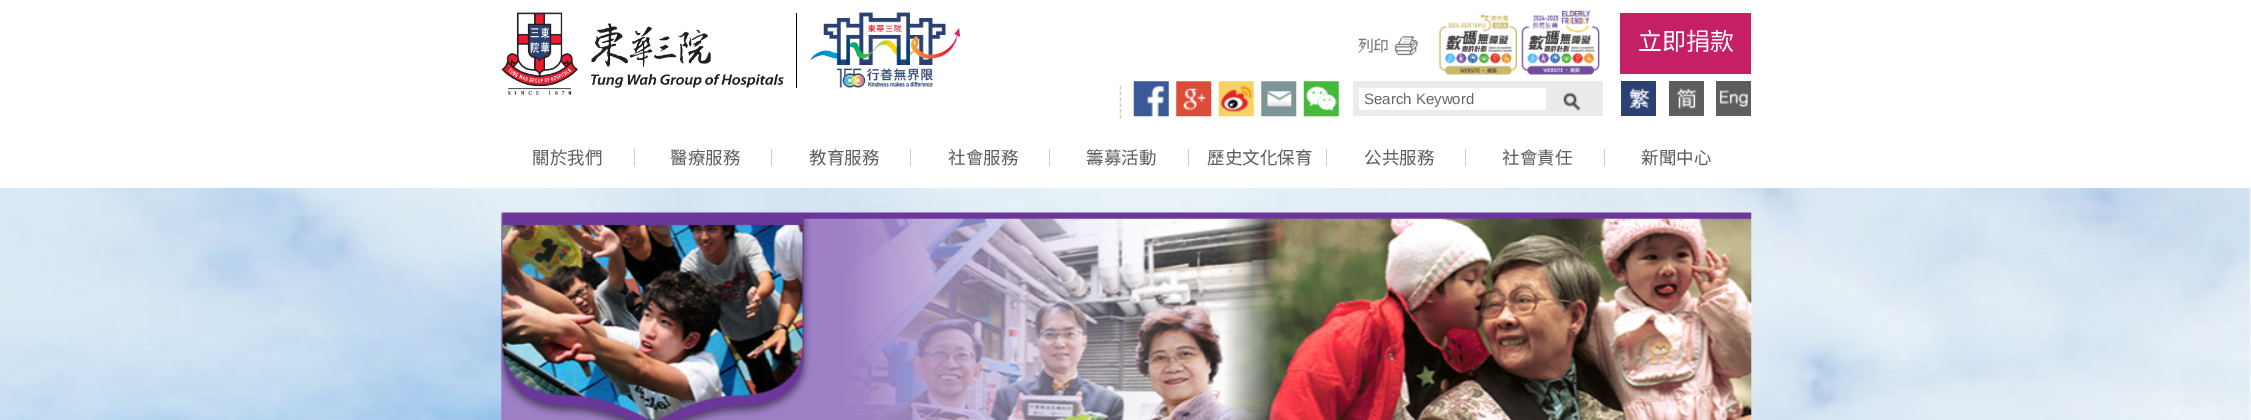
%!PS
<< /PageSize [2251 420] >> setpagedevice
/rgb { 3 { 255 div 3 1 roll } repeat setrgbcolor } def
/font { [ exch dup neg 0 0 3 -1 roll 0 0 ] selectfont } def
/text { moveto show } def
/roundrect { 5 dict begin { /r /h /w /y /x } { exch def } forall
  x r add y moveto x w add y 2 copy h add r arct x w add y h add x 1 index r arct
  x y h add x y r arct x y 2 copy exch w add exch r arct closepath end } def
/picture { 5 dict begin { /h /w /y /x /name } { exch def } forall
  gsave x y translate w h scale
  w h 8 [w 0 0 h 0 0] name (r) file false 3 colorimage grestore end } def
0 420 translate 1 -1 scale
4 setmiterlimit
255 255 255 rgb
0 0 2251 420 rectfill
(img_01.rgb) 0 188 2251 232 picture
(img_02.rgb) 501 12 283 83 picture
0 0 0 rgb
796 13 1 75 rectfill
(img_03.rgb) 810 12 150 76 picture
(img_04.rgb) 1358 36 60 20 picture
(img_05.rgb) 1438 10 162 65 picture
197 32 101 rgb
1620 13 131 61 rectfill
204 204 204 rgb
1.2 setlinewidth
[3.75 2] 0 setdash
1120.5 86 moveto 0 33 rlineto stroke
(img_06.rgb) 1133 81 36 36 picture
(img_07.rgb) 1176 81 36 36 picture
(img_08.rgb) 1218 81 36 36 picture
(img_09.rgb) 1261 81 36 36 picture
(img_10.rgb) 1303 81 36 36 picture
235 235 235 rgb
1353 81 250 35 rectfill
255 255 255 rgb
1359 88 187 22 2.5 roundrect fill
(img_11.rgb) 1559 89 25 22 picture
43 65 115 rgb
1621 81 35 35 rectfill
(img_12.rgb) 1629 88 20 21 picture
93 93 93 rgb
1669 81 35 35 rectfill
(img_13.rgb) 1677 88 20 21 picture
1716 81 35 35 rectfill
(img_14.rgb) 1719 90 30 18 picture
204 204 204 rgb
634 149 1 17 rectfill
771 149 1 17 rectfill
910 149 1 17 rectfill
1049 149 1 17 rectfill
1188 149 1 17 rectfill
1326 149 1 17 rectfill
1465 149 1 17 rectfill
1604 149 1 17 rectfill
(img_15.rgb) 501 212 1251 208 picture
/NotoSansCJKHK-Regular 24 font
255 255 255 rgb
(立即捐款) 1638 50 text
/LiberationSans-Regular 15 font
102 102 102 rgb
(Search Keyword) 1364 104 text
/NotoSansCJKHK-Regular 17.5 font
93 93 93 rgb
(關於我們) 532 164 text
(醫療服務) 670 164 text
(教育服務) 809 164 text
(社會服務) 948 164 text
(籌募活動) 1086 164 text
(歷史文化保育) 1207 164 text
(公共服務) 1364 164 text
(社會責任) 1502 164 text
(新聞中心) 1641 164 text
showpage
